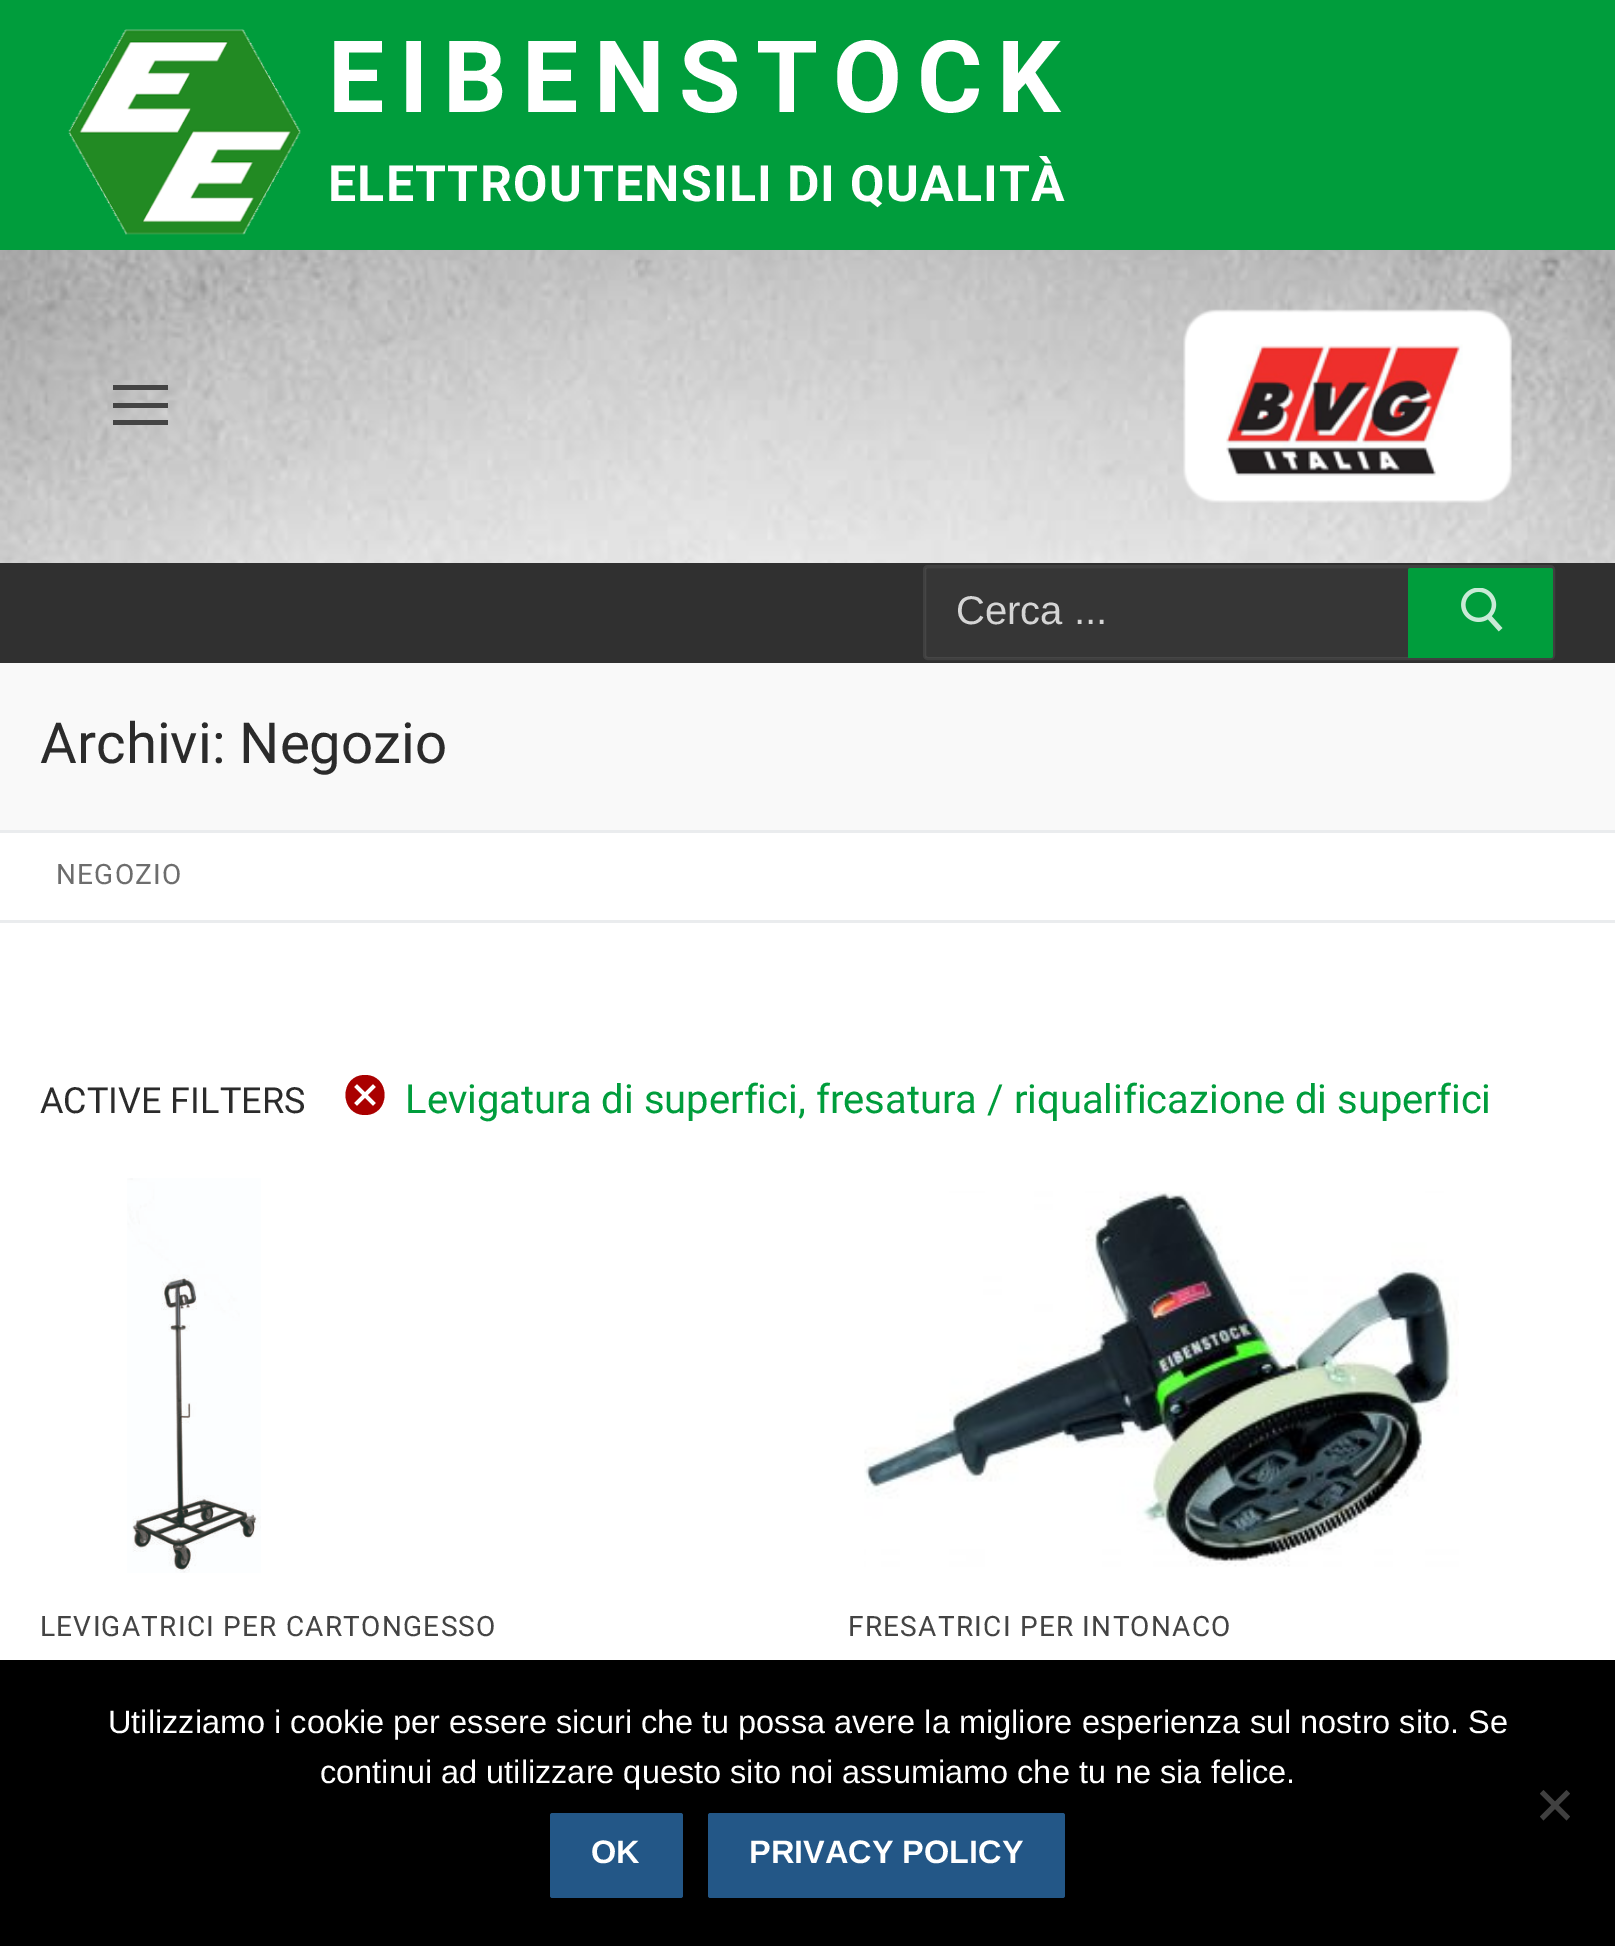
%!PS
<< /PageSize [1615 1946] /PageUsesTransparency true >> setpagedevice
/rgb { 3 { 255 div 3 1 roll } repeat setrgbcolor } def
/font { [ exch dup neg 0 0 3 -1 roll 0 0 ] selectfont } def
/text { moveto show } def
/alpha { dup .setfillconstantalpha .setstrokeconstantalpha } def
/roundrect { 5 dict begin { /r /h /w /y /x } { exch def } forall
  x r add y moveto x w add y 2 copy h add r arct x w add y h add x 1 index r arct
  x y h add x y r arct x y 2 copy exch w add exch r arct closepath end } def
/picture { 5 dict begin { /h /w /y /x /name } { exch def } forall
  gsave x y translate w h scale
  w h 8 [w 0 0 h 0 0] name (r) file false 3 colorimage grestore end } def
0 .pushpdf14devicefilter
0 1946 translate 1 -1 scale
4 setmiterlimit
255 255 255 rgb
0 0 1615 1946 rectfill
(img_01.rgb) 0 250 1615 313 picture
0 157 60 rgb
0 0 1615 250 rectfill
(img_02.rgb) 68 29 233 206 picture
(img_03.rgb) 1183 309 329 194 picture
68 68 68 rgb
113 403 55 5 rectfill
113 385 55 5 rectfill
113 420 55 5 rectfill
48 48 48 rgb
0 563 1615 100 rectfill
64 64 64 rgb
3 setlinewidth
924.5 566.5 629 92 3.5 roundrect stroke
0.03 alpha
255 255 255 rgb
925 568 486 90 rectfill
1 alpha
0 157 60 rgb
1410.5 568 moveto 140 0 rlineto 1.5 0 2.5 1 2.5 2.5 rcurveto 0 85 rlineto 0 1.5 -1 2.5 -2.5 2.5 rcurveto -142.5 0 rlineto 0 -87.5 rlineto 0 -1.5 1 -2.5 2.5 -2.5 rcurveto closepath fill
(img_04.rgb) 1461 588 42 44 picture
249 249 249 rgb
0 663 1615 167 rectfill
234 236 238 rgb
0 830 1615 3 rectfill
0 920 1615 3 rectfill
170 0 0 rgb
365 1075 moveto -26 0 -26 40 0 40 rcurveto 26 0 26 -40 0 -40 rcurveto closepath 376 1103 moveto -3 3 rlineto -8 -8 rlineto -8 8 rlineto -3 -3 rlineto 8 -8 rlineto -8 -8 rlineto 3 -3 rlineto 8 8 rlineto 8 -8 rlineto 3 3 rlineto -8 8 rlineto closepath fill
(img_05.rgb) 127 1178 134 395 picture
(img_06.rgb) 864 1191 595 376 picture
0 0 0 rgb
0 1660 1615 286 rectfill
64 64 64 rgb
1566.5 1790 moveto 3.5 3.5 rlineto -26.5 27 rlineto -3.5 -4 rlineto closepath fill
1540 1793.5 moveto 3.5 -3.5 rlineto 26.5 26.5 rlineto -3.5 4 rlineto closepath fill
35 87 135 rgb
550 1813 133 85 2.5 roundrect fill
708 1813 357 85 2.5 roundrect fill
/Roboto-Bold 100 font
255 255 255 rgb
328 112 moveto 15 0 (EIBENSTOCK) ashow
/Roboto-Bold 50 font
328 201 moveto 1.25 0 (ELETTROUTENSILI DI QUALITÀ) ashow
/LiberationSans-Regular 40 font
213 213 213 rgb
(Cerca ...) 956 624 text
/Roboto-Regular 56.5 font
43 43 43 rgb
(Archivi: Negozio) 40 763 text
/Roboto-Regular 28 font
109 109 109 rgb
56 884 moveto 1.25 0 (NEGOZIO) ashow
/Roboto-Regular 36 font
43 43 43 rgb
(ACTIVE FILTERS) 40 1113 text
/Roboto-Regular 40 font
0 157 60 rgb
(Levigatura di superfici, fresatura / riqualificazione di superfici) 405 1113 text
/Roboto-Regular 28 font
68 68 68 rgb
40 1636 moveto 1.25 0 (LEVIGATRICI PER CARTONGESSO) ashow
848 1636 moveto 1.25 0 (FRESATRICI PER INTONACO) ashow
/LiberationSans-Regular 32.5 font
255 255 255 rgb
(Utilizziamo i cookie per essere sicuri che tu possa avere la migliore esperienza sul nostro sito. Se) 108 1733 text
(continui ad utilizzare questo sito noi assumiamo che tu ne sia felice.) 320 1783 text
/LiberationSans-Bold 32.5 font
(OK) 591 1863 text
(PRIVACY POLICY) 749 1863 text
.poppdf14devicefilter showpage
